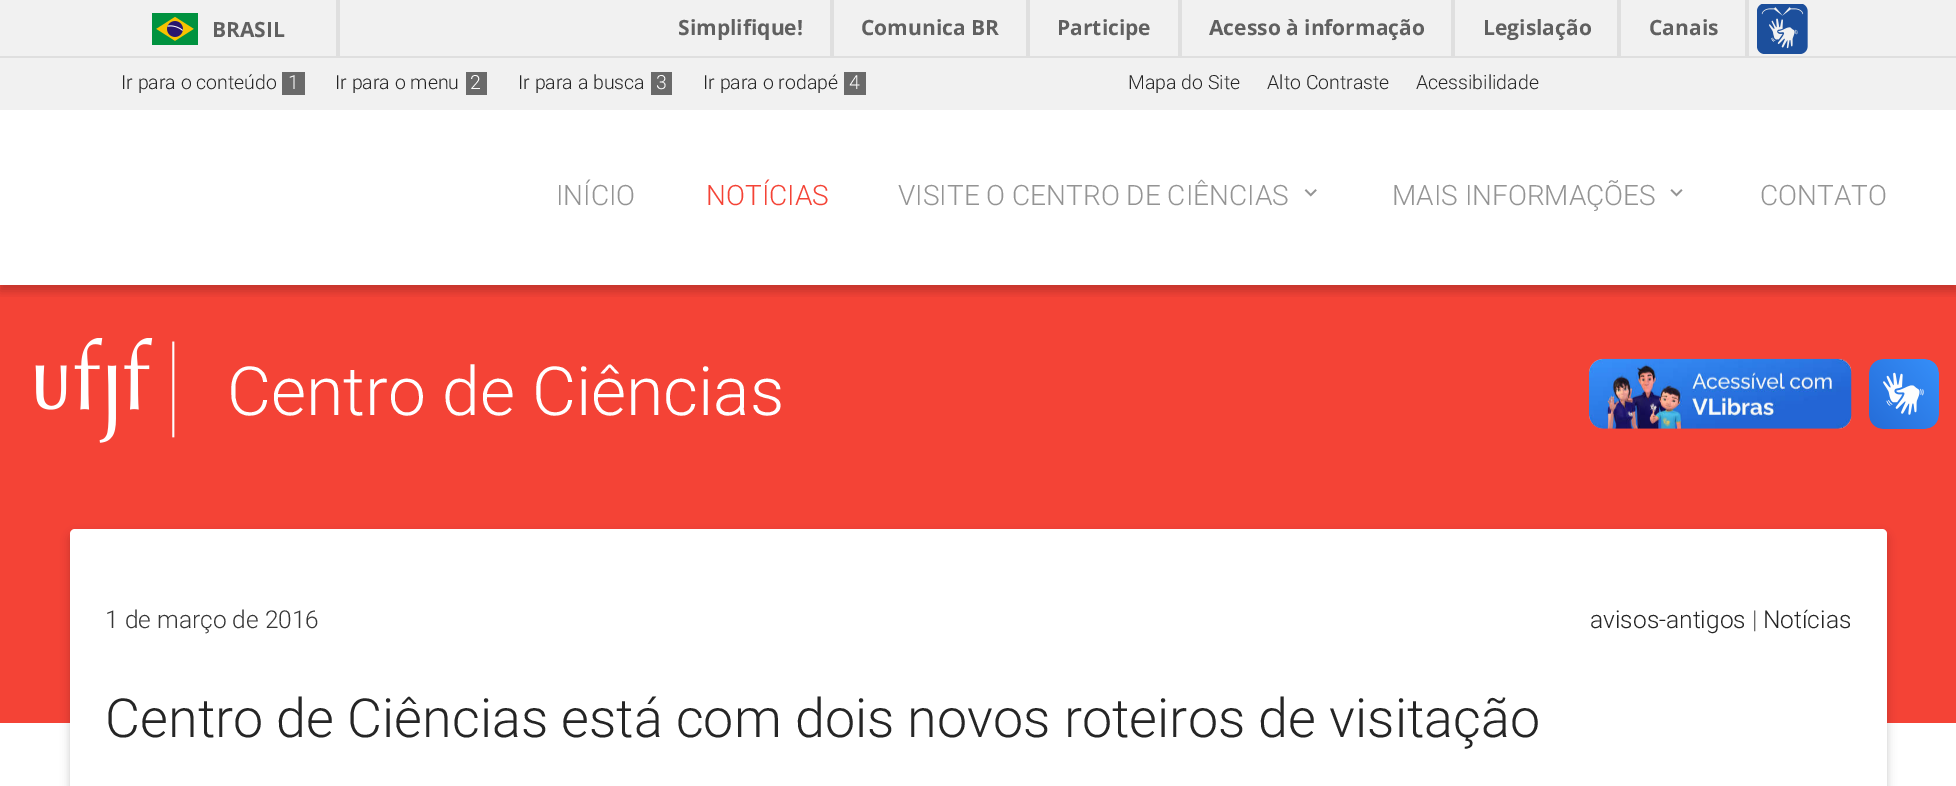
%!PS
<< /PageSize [1956 786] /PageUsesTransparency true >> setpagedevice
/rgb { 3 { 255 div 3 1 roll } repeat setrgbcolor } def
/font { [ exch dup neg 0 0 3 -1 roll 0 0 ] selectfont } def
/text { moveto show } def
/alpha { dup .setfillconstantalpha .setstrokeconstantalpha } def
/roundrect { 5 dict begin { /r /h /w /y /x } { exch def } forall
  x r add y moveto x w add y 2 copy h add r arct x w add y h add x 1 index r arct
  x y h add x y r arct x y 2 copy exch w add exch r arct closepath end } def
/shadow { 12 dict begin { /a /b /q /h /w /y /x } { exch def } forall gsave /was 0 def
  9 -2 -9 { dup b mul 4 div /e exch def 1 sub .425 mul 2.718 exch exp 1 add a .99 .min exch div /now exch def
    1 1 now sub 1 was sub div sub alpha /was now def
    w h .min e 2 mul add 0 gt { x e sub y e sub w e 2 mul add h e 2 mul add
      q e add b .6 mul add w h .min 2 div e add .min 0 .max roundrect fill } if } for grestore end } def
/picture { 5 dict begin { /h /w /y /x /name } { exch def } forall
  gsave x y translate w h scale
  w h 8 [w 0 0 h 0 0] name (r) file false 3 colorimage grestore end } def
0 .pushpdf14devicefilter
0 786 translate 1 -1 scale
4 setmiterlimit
255 255 255 rgb
0 0 1956 786 rectfill
244 67 54 rgb
0 285 1956 438 rectfill
gsave
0 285 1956 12 rectclip
0 0 0 rgb
0 5 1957 286 0 4.5 0.2 shadow
grestore
241 241 241 rgb
0 0 1956 56 rectfill
223 223 223 rgb
0 56 1956 2 rectfill
336 0 4 56 rectfill
(img_01.rgb) 152 13 46 32 picture
830 0 4 56 rectfill
1026 0 4 56 rectfill
1178 0 4 56 rectfill
1451 0 4 56 rectfill
1617 0 4 56 rectfill
1745 0 4 56 rectfill
(img_02.rgb) 1757 4 51 50 picture
241 241 241 rgb
0 58 1956 52 rectfill
106 106 106 rgb
282 72 23 23 rectfill
466 72 21 23 rectfill
651 72 21 23 rectfill
844 72 22 23 rectfill
(img_03.rgb) 1304 189 13 8 picture
(img_04.rgb) 1670 189 13 8 picture
(img_05.rgb) 1589 358 263 71 picture
(img_06.rgb) 1869 359 70 70 picture
(img_07.rgb) 35 338 140 105 picture
0 0 0 rgb
70 534 1817 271 5 4.5 0.2 shadow
255 255 255 rgb
70 529 1817 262 5 roundrect fill
/OpenSans-Bold 21 font
96 96 96 rgb
(BRASIL) 212 37 text
(Simplifique!) 678 35 text
(Comunica BR) 861 35 text
(Participe) 1057 35 text
(Acesso à informação) 1209 35 text
(Legislação) 1483 35 text
(Canais) 1649 35 text
/Roboto-Light 19.5 font
37 37 37 rgb
(Ir para o conteúdo) 121 89 text
255 255 255 rgb
(1) 288 89 text
37 37 37 rgb
(Ir para o menu) 335 89 text
255 255 255 rgb
(2) 470 89 text
37 37 37 rgb
(Ir para a busca) 518 89 text
255 255 255 rgb
(3) 656 89 text
37 37 37 rgb
(Ir para o rodapé) 703 89 text
255 255 255 rgb
(4) 849 89 text
37 37 37 rgb
(Mapa do Site) 1128 89 text
(Alto Contraste) 1267 89 text
(Acessibilidade) 1416 89 text
/Roboto-Light 28 font
148 148 148 rgb
(INÍCIO) 556 205 text
244 67 54 rgb
(NOTÍCIAS) 706 205 text
148 148 148 rgb
(VISITE O CENTRO DE CIÊNCIAS) 898 205 text
(MAIS INFORMAÇÕES) 1392 205 text
(CONTATO) 1760 205 text
/Roboto-Light 67.75 font
255 255 255 rgb
(Centro de Ciências) 227 415 text
/Roboto-Light 24.5 font
55 55 55 rgb
(1 de março de 2016) 105 628 text
37 37 37 rgb
(avisos-antigos) 1590 628 text
55 55 55 rgb
(|) 1752 628 text
37 37 37 rgb
(Notícias) 1763 628 text
/Roboto-Light 53.9 font
(Centro de Ciências está com dois novos roteiros de visitação) 105 737 text
.poppdf14devicefilter showpage
